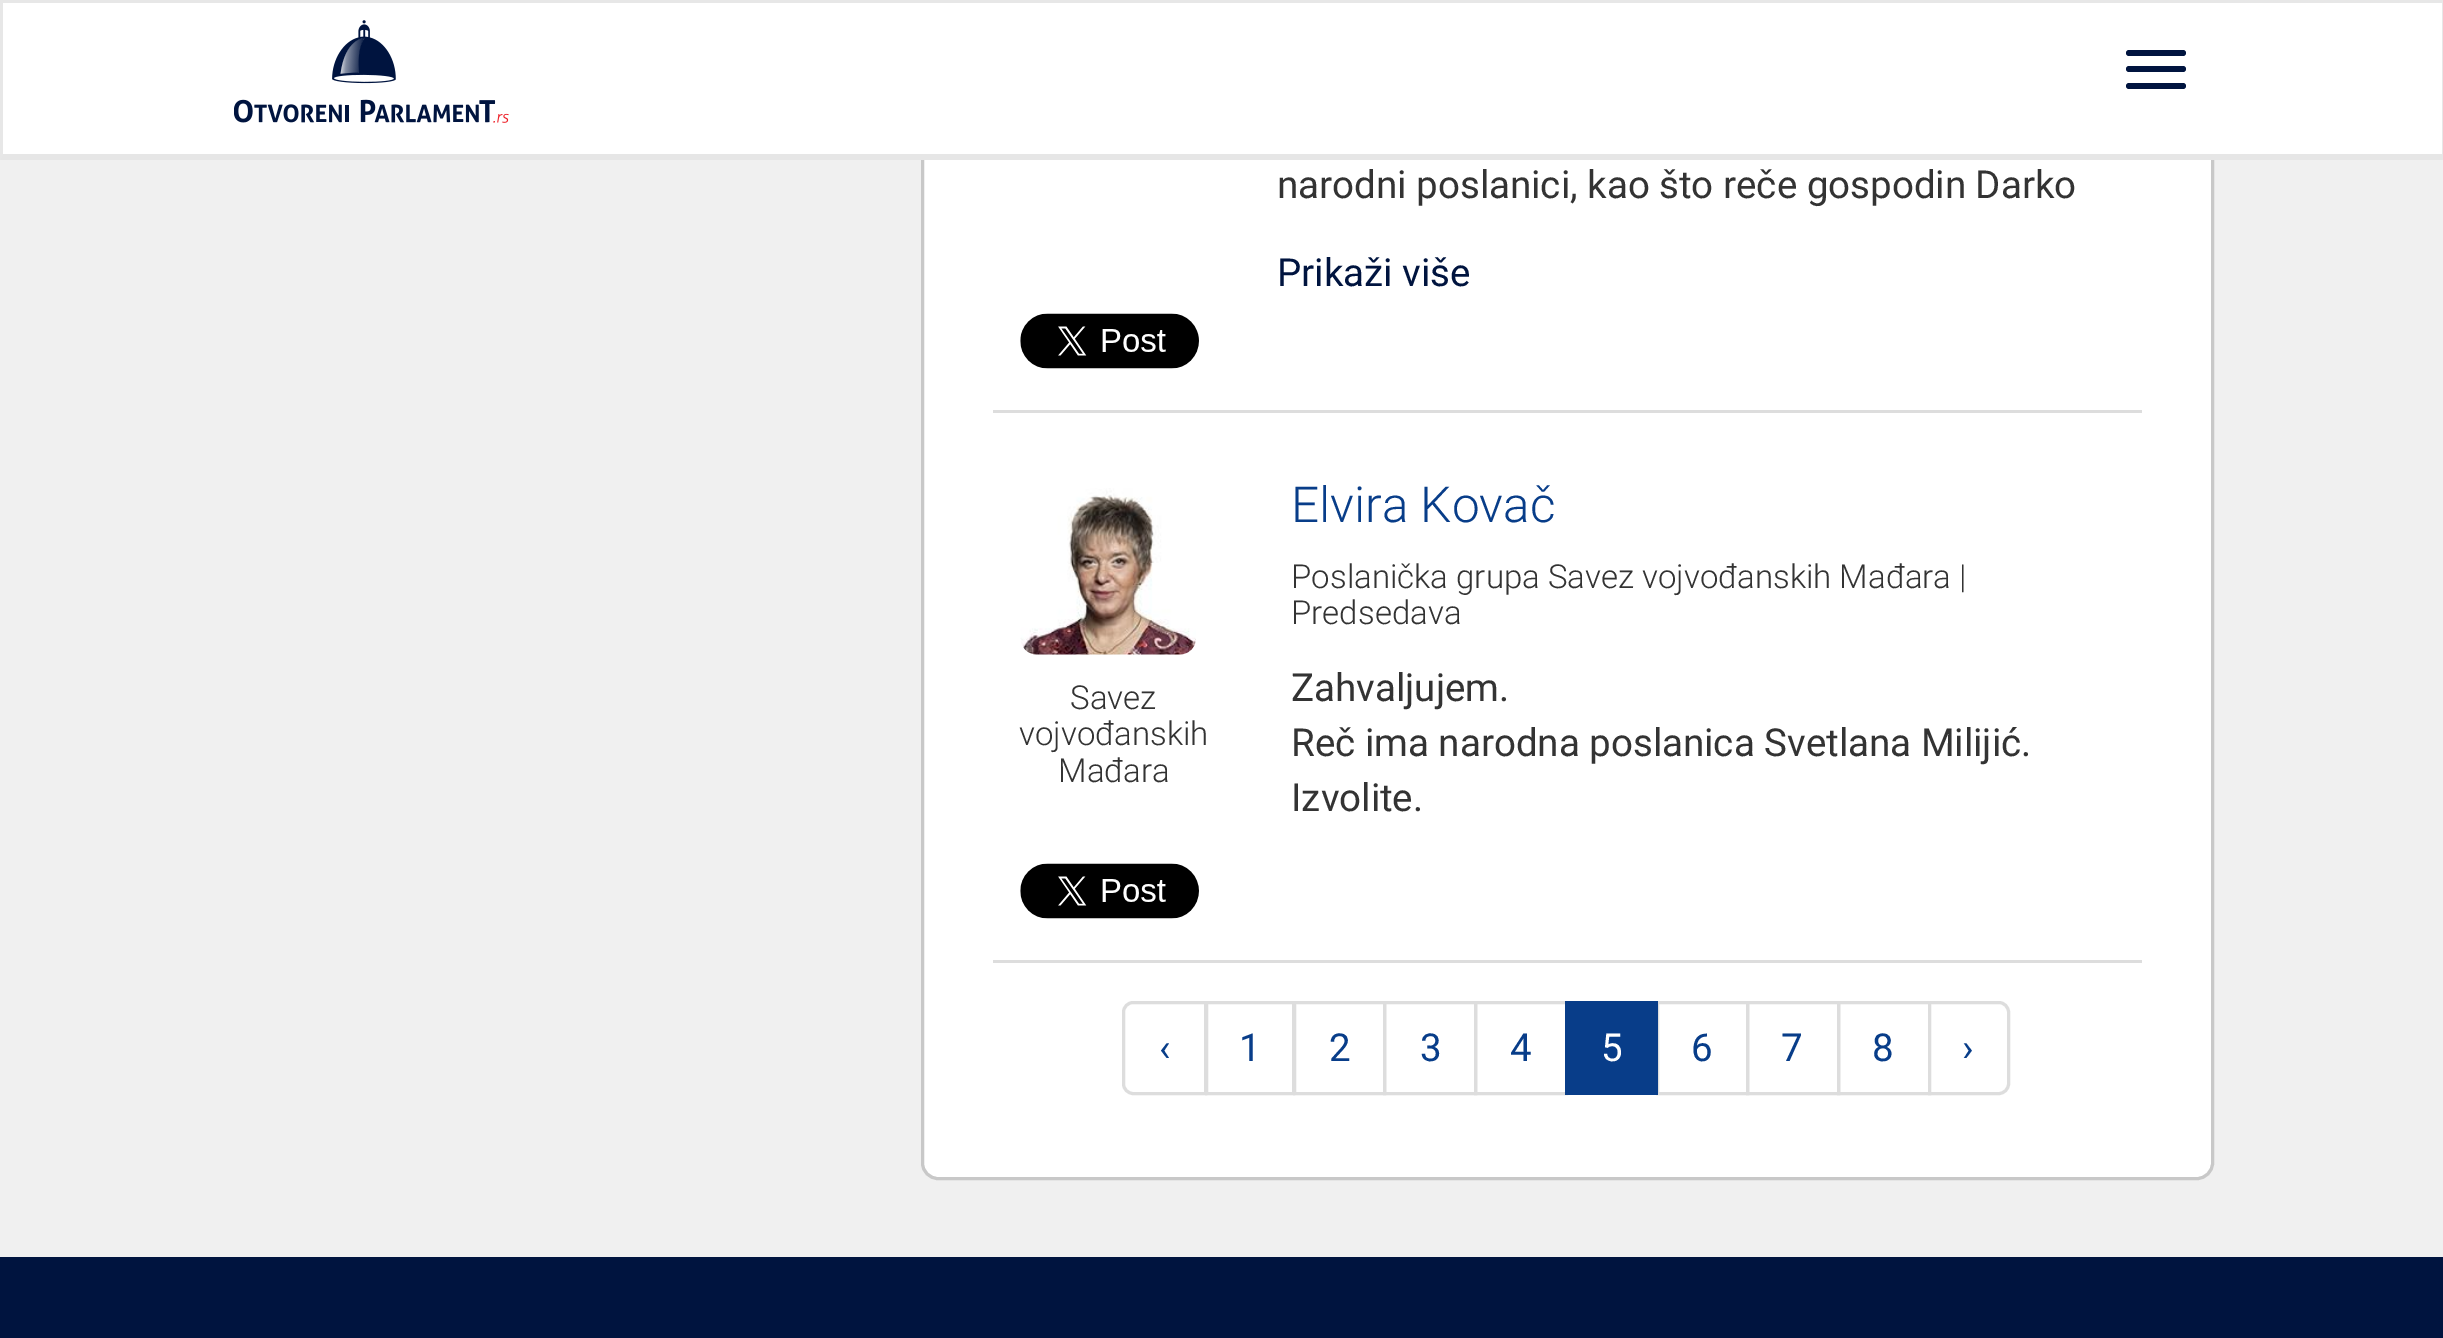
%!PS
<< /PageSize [2443 1338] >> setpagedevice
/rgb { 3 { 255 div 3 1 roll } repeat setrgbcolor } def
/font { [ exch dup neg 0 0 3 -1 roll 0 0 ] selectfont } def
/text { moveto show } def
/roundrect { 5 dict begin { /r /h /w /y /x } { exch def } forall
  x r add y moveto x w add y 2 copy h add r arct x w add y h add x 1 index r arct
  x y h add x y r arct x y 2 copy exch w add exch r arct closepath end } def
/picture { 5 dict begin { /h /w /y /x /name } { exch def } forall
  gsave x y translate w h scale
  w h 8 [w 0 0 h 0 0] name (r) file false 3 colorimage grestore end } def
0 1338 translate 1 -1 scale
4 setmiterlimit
240 240 240 rgb
0 0 2443 1338 rectfill
255 255 255 rgb
922.5 -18.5 1290 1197 15.5 roundrect gsave fill grestore
200 200 200 rgb
3 setlinewidth
stroke
255 255 255 rgb
3 3 2439 151 rectfill
231 231 231 rgb
0 0 2443 3 rectfill
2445 0 moveto 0 160 rlineto -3 -6 rlineto 0 -151 rlineto closepath fill
230 230 230 rgb
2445 160 moveto -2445 0 rlineto 3 -6 rlineto 2439 0 rlineto closepath fill
231 231 231 rgb
0 160 moveto 0 -160 rlineto 3 3 rlineto 0 151 rlineto closepath fill
(img_01.rgb) 234 20 275 103 picture
0 20 63 rgb
2126 50 60 6 3 roundrect fill
2126 66 60 6 3 roundrect fill
2126 83 60 6 3 roundrect fill
221 221 221 rgb
993 410 1149 3 rectfill
(img_02.rgb) 1020 313 179 56 picture
993 960 1149 3 rectfill
(img_03.rgb) 1020 488 176 167 picture
(img_04.rgb) 1020 863 179 56 picture
1133 1002.5 moveto 72.5 0 rlineto 0 91 rlineto -72.5 0 rlineto -5 0 -9.5 -4.5 -9.5 -9.5 rcurveto 0 -72 rlineto 0 -5 4.5 -9.5 9.5 -9.5 rcurveto closepath stroke
1206.5 1002.5 87 91 rectstroke
1294.5 1002.5 90 91 rectstroke
1384.5 1002.5 91 91 rectstroke
1475.5 1002.5 91 91 rectstroke
1657.5 1002.5 90 91 rectstroke
8 61 137 rgb
1565 1001 93 94 rectfill
221 221 221 rgb
1747.5 1002.5 91 91 rectstroke
1838.5 1002.5 91 91 rectstroke
255 255 255 rgb
1929.5 1002.5 moveto 69.5 0 rlineto 5 0 9.5 4.5 9.5 9.5 rcurveto 0 72 rlineto 0 5 -4.5 9.5 -9.5 9.5 rcurveto -69.5 0 rlineto closepath gsave fill grestore
221 221 221 rgb
stroke
0 20 63 rgb
0 1257 2443 81 rectfill
/Roboto-Regular 38.5 font
51 51 51 rgb
(narodni poslanici, kao što reče gospodin Darko) 1277 198 text
0 20 63 rgb
(Prikaži više) 1277 286 text
/Roboto-Light 33 font
51 51 51 rgb
(Savez) 1070 709 text
(vojvođanskih) 1019 745 text
(Mađara) 1058 782 text
/Roboto-Light 49.5 font
8 61 137 rgb
(Elvira Kovač) 1291 522 text
/Roboto-Light 33 font
51 51 51 rgb
(Poslanička grupa Savez vojvođanskih Mađara |) 1291 588 text
(Predsedava) 1291 624 text
/Roboto-Regular 38.5 font
(Zahvaljujem.) 1291 701 text
(Reč ima narodna poslanica Svetlana Milijić.) 1291 756 text
(Izvolite.) 1291 811 text
8 61 137 rgb
(‹) 1159 1061 text
(1) 1239 1061 text
(2) 1329 1061 text
(3) 1420 1061 text
(4) 1510 1061 text
255 255 255 rgb
(5) 1601 1061 text
8 61 137 rgb
(6) 1691 1061 text
(7) 1781 1061 text
(8) 1872 1061 text
(›) 1962 1061 text
showpage
